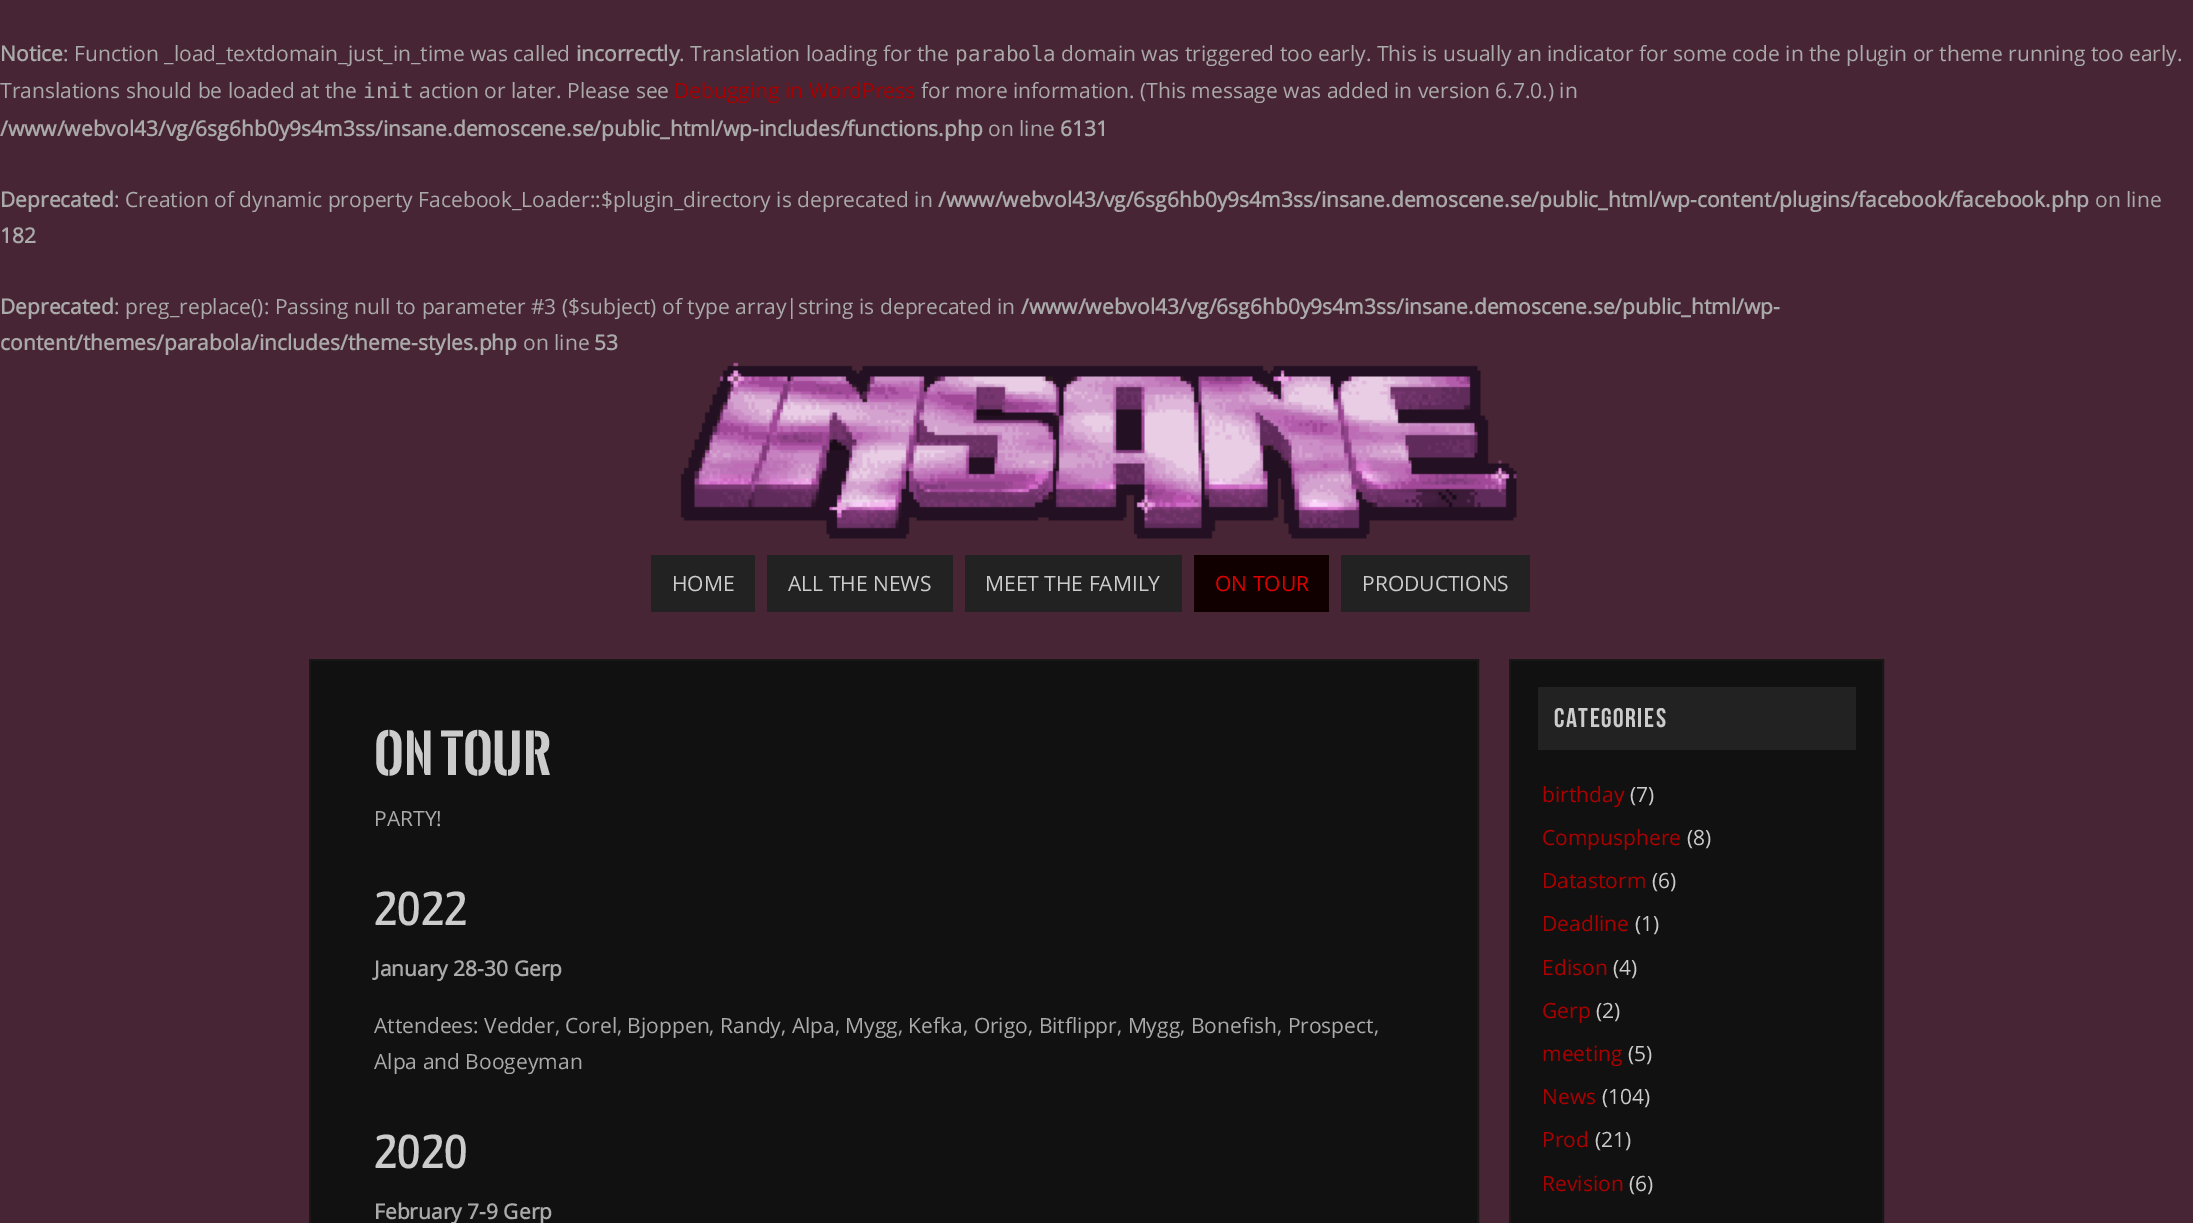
%!PS
<< /PageSize [2193 1223] >> setpagedevice
/rgb { 3 { 255 div 3 1 roll } repeat setrgbcolor } def
/font { [ exch dup neg 0 0 3 -1 roll 0 0 ] selectfont } def
/text { moveto show } def
/picture { 5 dict begin { /h /w /y /x /name } { exch def } forall
  gsave x y translate w h scale
  w h 8 [w 0 0 h 0 0] name (r) file false 3 colorimage grestore end } def
0 1223 translate 1 -1 scale
4 setmiterlimit
72 37 53 rgb
0 0 2193 1223 rectfill
(img_01.rgb) 680 362 837 177 picture
34 34 34 rgb
651 555 104 57 rectfill
767 555 186 57 rectfill
965 555 217 57 rectfill
17 0 0 rgb
1194 555 135 57 rectfill
34 34 34 rgb
1341 555 189 57 rectfill
17 17 17 rgb
310 660 moveto 1168 0 rlineto 0 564 rlineto -1168 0 rlineto closepath gsave fill grestore
26 23 23 rgb
2 setlinewidth
stroke
17 17 17 rgb
1510 660 moveto 373 0 rlineto 0 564 rlineto -373 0 rlineto closepath gsave fill grestore
26 23 23 rgb
stroke
34 34 34 rgb
1538 687 318 63 rectfill
/OpenSans-Bold 21 font
170 170 170 rgb
(Notice) 0 61 text
/OpenSans-Regular 21 font
(: Function _load_textdomain_just_in_time was called) 63 61 text
/OpenSans-Bold 21 font
(incorrectly) 576 61 text
/OpenSans-Regular 21 font
(. Translation loading for the) 679 61 text
/DejaVuSansMono-Regular 21 font
(parabola) 955 61 text
/OpenSans-Regular 21 font
(domain was triggered too early. This is usually an indicator for some code in the plugin or theme running too early.) 1061 61 text
(Translations should be loaded at the) 0 98 text
/DejaVuSansMono-Regular 21 font
(init) 363 98 text
/OpenSans-Regular 21 font
(action or later. Please see) 419 98 text
170 0 0 rgb
(Debugging in WordPress) 674 98 text
170 170 170 rgb
(for more information. \(This message was added in version 6.7.0.\) in) 921 98 text
/OpenSans-Bold 21 font
(/www/webvol43/vg/6sg6hb0y9s4m3ss/insane.demoscene.se/public_html/wp-includes/functions.php) 0 136 text
/OpenSans-Regular 21 font
(on line) 988 136 text
/OpenSans-Bold 21 font
(6131) 1060 136 text
(Deprecated) 0 207 text
/OpenSans-Regular 21 font
(: Creation of dynamic property Facebook_Loader::$plugin_directory is deprecated in) 114 207 text
/OpenSans-Bold 21 font
(/www/webvol43/vg/6sg6hb0y9s4m3ss/insane.demoscene.se/public_html/wp-content/plugins/facebook/facebook.php) 938 207 text
/OpenSans-Regular 21 font
(on line) 2095 207 text
/OpenSans-Bold 21 font
(182) 0 243 text
(Deprecated) 0 314 text
/OpenSans-Regular 21 font
(: preg_replace\(\): Passing null to parameter #3 \($subject\) of type array|string is deprecated in) 114 314 text
/OpenSans-Bold 21 font
(/www/webvol43/vg/6sg6hb0y9s4m3ss/insane.demoscene.se/public_html/wp-) 1021 314 text
(content/themes/parabola/includes/theme-styles.php) 0 350 text
/OpenSans-Regular 21 font
(on line) 523 350 text
/OpenSans-Bold 21 font
(53) 594 350 text
/OpenSans-Regular 21 font
204 204 204 rgb
(HOME) 672 591 text
(ALL THE NEWS) 788 591 text
(MEET THE FAMILY) 985 591 text
221 0 0 rgb
(ON TOUR) 1215 591 text
204 204 204 rgb
(PRODUCTIONS) 1362 591 text
/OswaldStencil-Bold 51 font
(On tour) 374 775 text
/OpenSans-Regular 21 font
170 170 170 rgb
(PARTY!) 374 826 text
/YanoneKaffeesatz-Regular 56 font
204 204 204 rgb
(2022) 374 925 text
/OpenSans-Bold 21 font
170 170 170 rgb
(January 28-30 Gerp) 374 976 text
/OpenSans-Regular 21 font
(Attendees: Vedder, Corel, Bjoppen, Randy, Alpa, Mygg, Kefka, Origo, Bitflippr, Mygg, Bonefish, Prospect,) 374 1033 text
(Alpa and Boogeyman) 374 1069 text
/YanoneKaffeesatz-Regular 56 font
204 204 204 rgb
(2020) 374 1168 text
/OpenSans-Bold 21 font
170 170 170 rgb
(February 7-9 Gerp) 374 1219 text
/BebasNeue-Regular 27 font
204 204 204 rgb
1554 727 moveto 1.5 0 (CATEGORIES) ashow
/OpenSans-Regular 21 font
170 0 0 rgb
(birthday) 1542 802 text
204 204 204 rgb
(\(7\)) 1630 802 text
170 0 0 rgb
(Compusphere) 1542 845 text
204 204 204 rgb
(\(8\)) 1687 845 text
170 0 0 rgb
(Datastorm) 1542 888 text
204 204 204 rgb
(\(6\)) 1652 888 text
170 0 0 rgb
(Deadline) 1542 931 text
204 204 204 rgb
(\(1\)) 1635 931 text
170 0 0 rgb
(Edison) 1542 975 text
204 204 204 rgb
(\(4\)) 1613 975 text
170 0 0 rgb
(Gerp) 1542 1018 text
204 204 204 rgb
(\(2\)) 1596 1018 text
170 0 0 rgb
(meeting) 1542 1061 text
204 204 204 rgb
(\(5\)) 1628 1061 text
170 0 0 rgb
(News) 1542 1104 text
204 204 204 rgb
(\(104\)) 1602 1104 text
170 0 0 rgb
(Prod) 1542 1147 text
204 204 204 rgb
(\(21\)) 1595 1147 text
170 0 0 rgb
(Revision) 1542 1191 text
204 204 204 rgb
(\(6\)) 1629 1191 text
showpage
